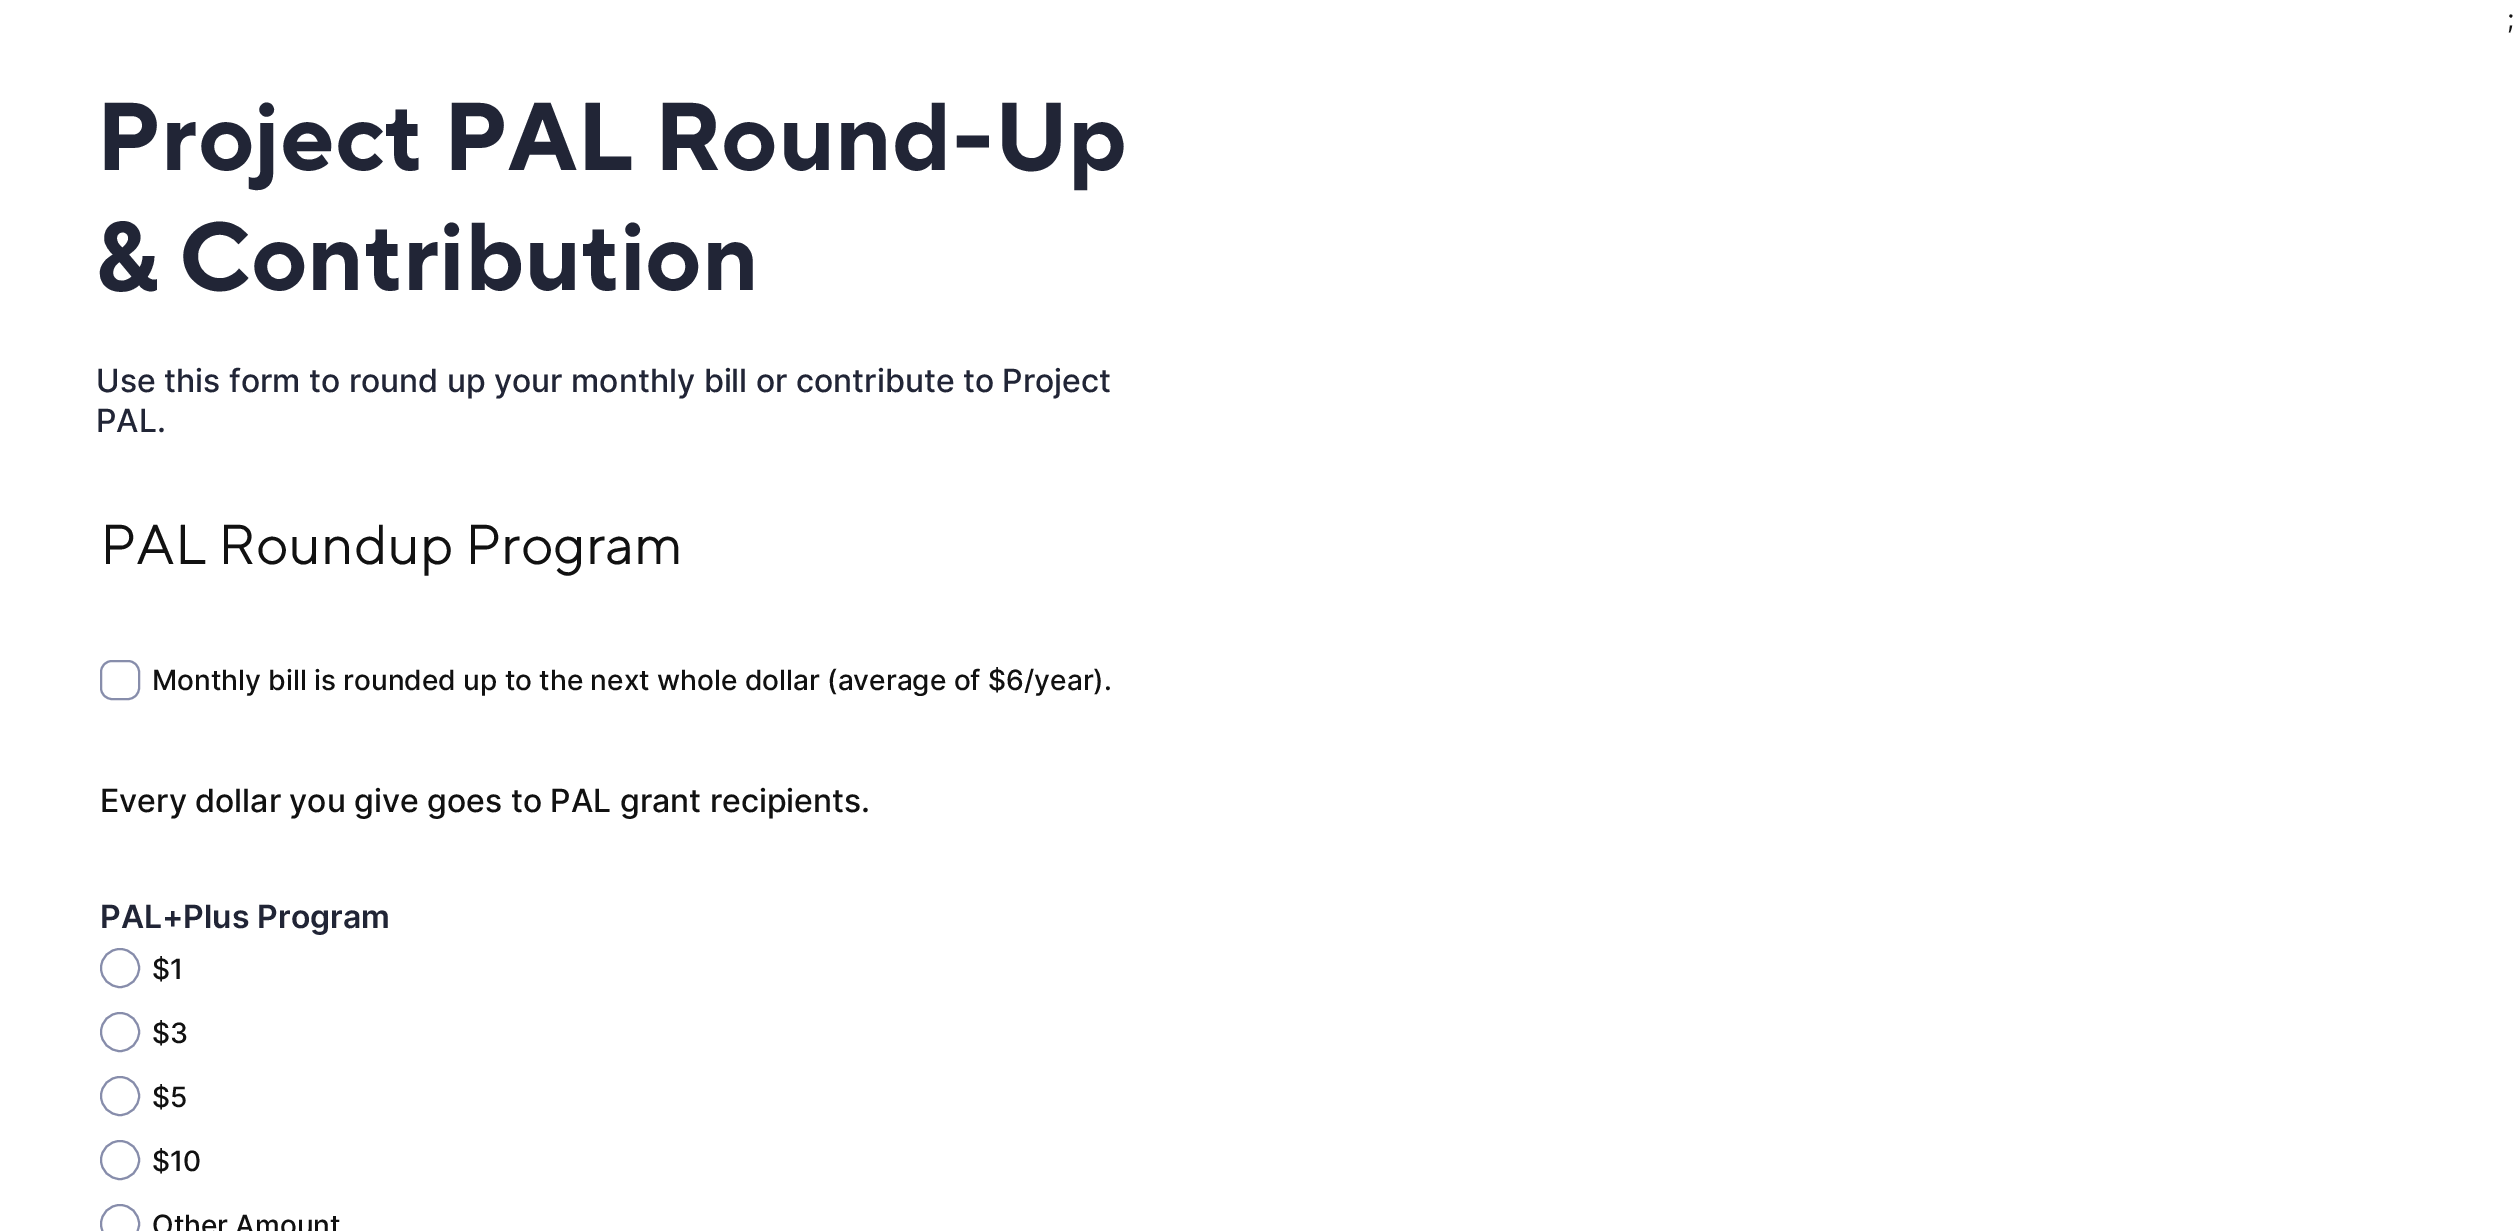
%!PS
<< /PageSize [2513 1231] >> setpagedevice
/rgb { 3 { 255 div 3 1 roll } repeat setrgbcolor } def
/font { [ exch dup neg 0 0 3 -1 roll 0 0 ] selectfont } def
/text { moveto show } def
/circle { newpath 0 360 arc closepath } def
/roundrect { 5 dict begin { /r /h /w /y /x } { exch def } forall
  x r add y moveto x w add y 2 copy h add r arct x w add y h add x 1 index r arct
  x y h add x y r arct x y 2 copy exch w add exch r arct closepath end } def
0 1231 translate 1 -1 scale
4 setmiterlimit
255 255 255 rgb
0 0 2513 1231 rectfill
135 141 171 rgb
2 setlinewidth
101 661 38 38 11 roundrect stroke
120 968 19 circle stroke
120 1032 19 circle stroke
120 1096 19 circle stroke
120 1160 19 circle stroke
120 1224 19 circle stroke
/Inter-Regular 26 font
17 17 17 rgb
(;) 2507 28 text
/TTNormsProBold-Bold 96 font
33 37 54 rgb
(Project PAL Round-Up) 96 170 text
(& Contribution) 96 290 text
/Inter-Medium 32 font
(Use this form to round up your monthly bill or contribute to Project) 96 392 text
(PAL.) 96 432 text
/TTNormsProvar-Regular 56 font
17 17 17 rgb
(PAL Roundup Program) 100 564 text
/Inter-Medium 28 font
(Monthly bill is rounded up to the next whole dollar \(average of $6/year\).) 152 690 text
/Inter-Medium 32 font
(Every dollar you give goes to PAL grant recipients.) 100 812 text
/Inter-SemiBold 32 font
33 37 54 rgb
(PAL+Plus Program) 100 928 text
/Inter-Medium 28 font
17 17 17 rgb
($1) 152 979 text
($3) 152 1043 text
($5) 152 1107 text
($10) 152 1171 text
(Other Amount) 152 1235 text
showpage
